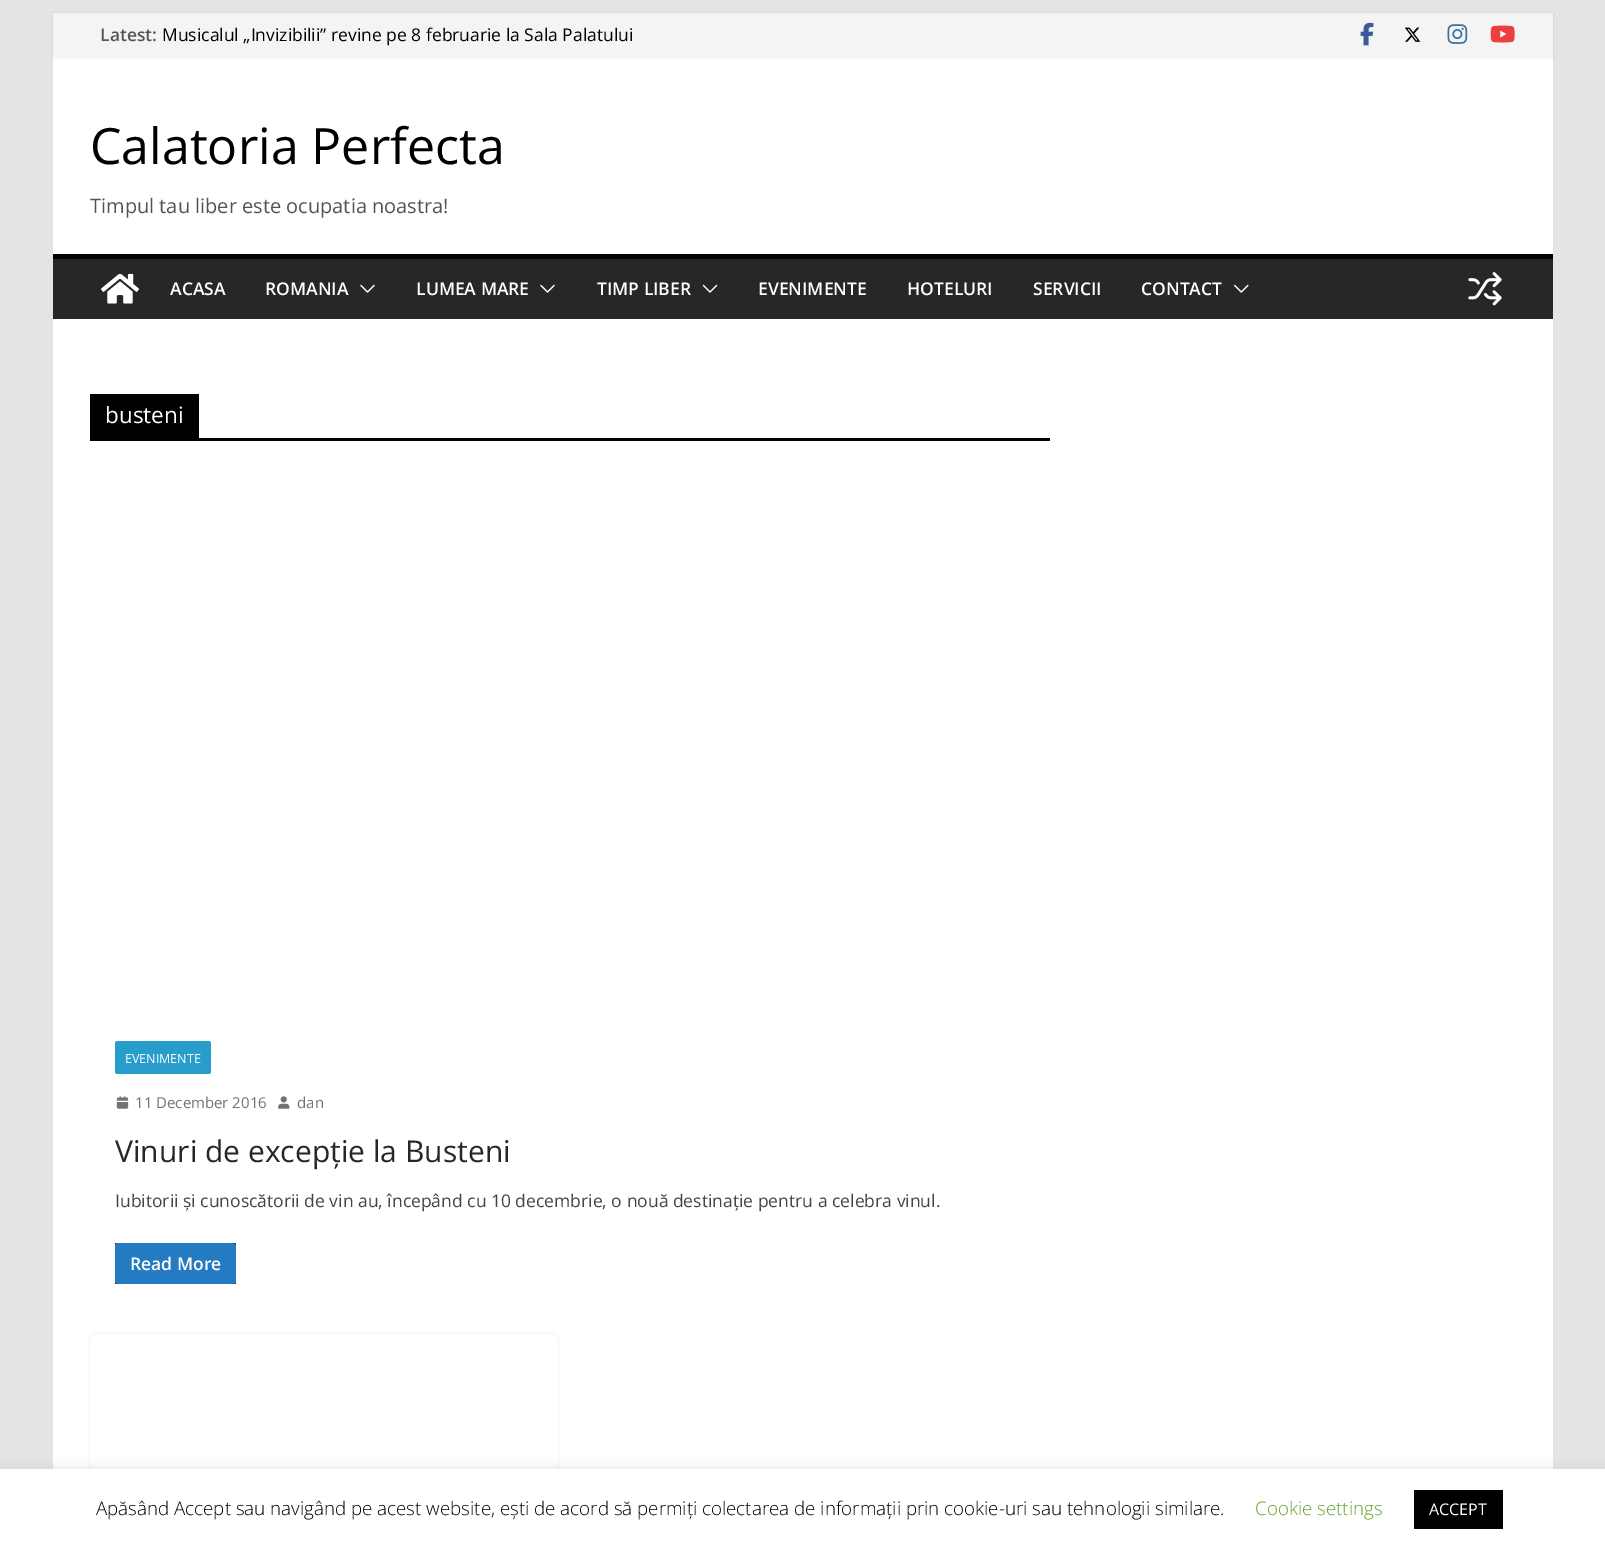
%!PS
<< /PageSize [1605 1550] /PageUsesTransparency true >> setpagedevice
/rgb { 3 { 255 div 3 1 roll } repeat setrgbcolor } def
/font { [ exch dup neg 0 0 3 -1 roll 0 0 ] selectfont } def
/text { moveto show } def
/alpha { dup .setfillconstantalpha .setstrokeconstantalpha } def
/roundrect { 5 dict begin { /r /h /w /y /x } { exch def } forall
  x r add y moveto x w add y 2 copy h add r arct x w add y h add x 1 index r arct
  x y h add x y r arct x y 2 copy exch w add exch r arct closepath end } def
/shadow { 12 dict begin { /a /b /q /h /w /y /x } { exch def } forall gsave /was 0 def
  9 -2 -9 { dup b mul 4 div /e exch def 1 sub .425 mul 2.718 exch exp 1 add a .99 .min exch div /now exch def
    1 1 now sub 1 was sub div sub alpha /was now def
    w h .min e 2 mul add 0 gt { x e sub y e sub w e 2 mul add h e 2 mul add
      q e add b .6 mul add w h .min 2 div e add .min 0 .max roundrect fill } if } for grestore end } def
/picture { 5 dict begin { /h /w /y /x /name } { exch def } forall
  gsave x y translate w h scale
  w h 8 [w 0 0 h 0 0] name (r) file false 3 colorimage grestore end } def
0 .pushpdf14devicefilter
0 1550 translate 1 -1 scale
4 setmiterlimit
228 228 231 rgb
0 0 1605 1550 rectfill
255 255 255 rgb
53 58 1500 196 rectfill
0 0 0 rgb
53 13 1500 45 0 1 0.1 shadow
244 244 245 rgb
53 13 1500 45 rectfill
(img_01.rgb) 1360 22 14 24 picture
(img_02.rgb) 1404 27 17 15 picture
(img_03.rgb) 1447 24 21 20 picture
(img_04.rgb) 1490 25 25 18 picture
39 39 42 rgb
53 259 1500 60 rectfill
0 0 0 rgb
53 254 1500 5 rectfill
(img_05.rgb) 101 273 38 31 picture
(img_06.rgb) 360 284 15 9 picture
(img_06.rgb) 540 284 15 9 picture
(img_07.rgb) 702 284 16 9 picture
(img_08.rgb) 1234 284 15 9 picture
(img_09.rgb) 1468 272 34 34 picture
255 255 255 rgb
53 319 1500 1150 rectfill
0 0 0 rgb
90 438 960 3 rectfill
90 394 109 44 rectfill
40 157 204 rgb
115 1041 96 33 2.5 roundrect fill
(img_10.rgb) 116 1096 13 13 picture
(img_11.rgb) 278 1096 12 13 picture
0 0 0 rgb
115 1243 121 41 rectfill
37 123 193 rgb
115 1243 121 41 2.5 roundrect fill
gsave
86 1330 moveto 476 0 rlineto 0 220 rlineto -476 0 rlineto closepath 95 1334 moveto 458 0 rlineto 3 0 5 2 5 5 rcurveto 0 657 rlineto 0 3 -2 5 -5 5 rcurveto -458 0 rlineto -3 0 -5 -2 -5 -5 rcurveto 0 -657 rlineto 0 -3 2 -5 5 -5 rcurveto closepath eoclip newpath
228 228 231 rgb
90 1334 468 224 5 1 1 shadow
grestore
172 171 171 rgb
0 1468 1605 81 0 6 0.3 shadow
255 255 255 rgb
0 1469 1605 81 rectfill
0 0 0 rgb
1414 1490 89 39 rectfill
/OpenSans-SemiBold 17.5 font
85 85 85 rgb
(Latest:) 100 41 text
/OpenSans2-Regular 17.5 font
0 0 0 rgb
(Musicalul „Invizibilii” revine pe 8 februarie la Sala Palatului) 162 41 text
/OpenSans-Regular 50 font
(Calatoria Perfecta) 90 164 text
/OpenSans2-Regular 20 font
82 82 91 rgb
(Timpul tau liber este ocupatia noastra!) 90 213 text
/OpenSans-SemiBold 17.5 font
255 255 255 rgb
(ACASA) 170 295 text
(ROMANIA) 265 295 text
(LUMEA MARE) 416 295 text
(TIMP LIBER) 597 295 text
(EVENIMENTE) 758 295 text
(HOTELURI) 907 295 text
(SERVICII) 1033 295 text
(CONTACT) 1141 295 text
/OpenSans-Regular 22.5 font
(busteni) 105 423 text
/OpenSans2-Regular 12.5 font
(EVENIMENTE) 125 1063 text
/OpenSans2-Regular 15 font
113 113 122 rgb
(11 December 2016) 135 1108 text
(dan) 297 1108 text
/OpenSans-Regular 30 font
39 39 42 rgb
(Vinuri de excepție la Busteni) 115 1162 text
/OpenSans2-Regular 17.5 font
68 68 68 rgb
(Iubitorii și cunoscătorii de vin au, începând cu 10 decembrie, o nouă destinație pentru a celebra vinul.) 115 1207 text
/OpenSans-SemiBold 17.5 font
255 255 255 rgb
(Read More) 130 1270 text
/OpenSans-Light 18.75 font
0 0 0 rgb
(Apăsând Accept sau navigând pe acest website, ești de acord să permiți colectarea de informații prin cookie-uri sau tehnologii similare.) 96 1515 text
98 163 41 rgb
(Cookie settings) 1255 1515 text
/OpenSans2-Regular 16 font
255 255 255 rgb
(ACCEPT) 1429 1515 text
.poppdf14devicefilter showpage
